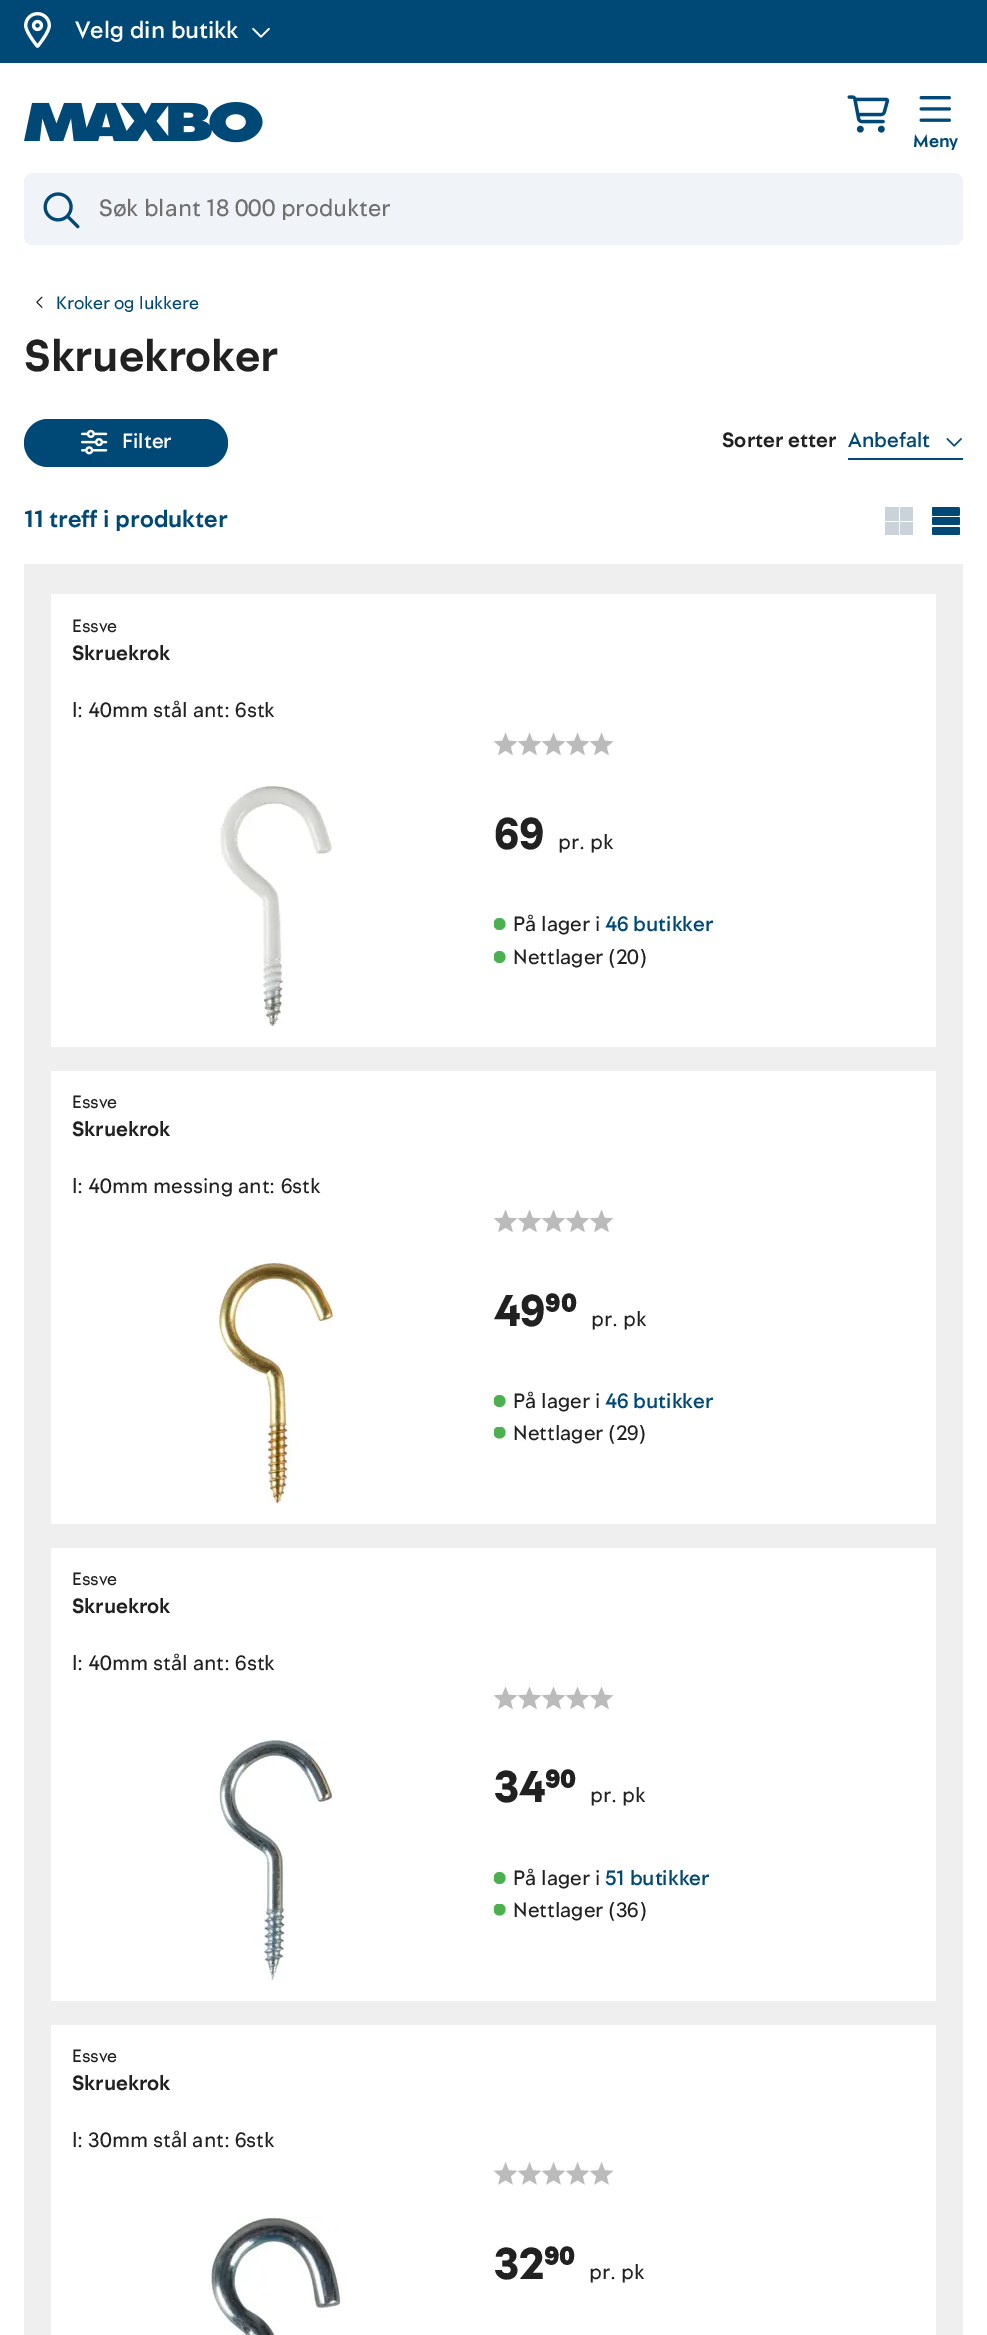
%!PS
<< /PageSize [987 2335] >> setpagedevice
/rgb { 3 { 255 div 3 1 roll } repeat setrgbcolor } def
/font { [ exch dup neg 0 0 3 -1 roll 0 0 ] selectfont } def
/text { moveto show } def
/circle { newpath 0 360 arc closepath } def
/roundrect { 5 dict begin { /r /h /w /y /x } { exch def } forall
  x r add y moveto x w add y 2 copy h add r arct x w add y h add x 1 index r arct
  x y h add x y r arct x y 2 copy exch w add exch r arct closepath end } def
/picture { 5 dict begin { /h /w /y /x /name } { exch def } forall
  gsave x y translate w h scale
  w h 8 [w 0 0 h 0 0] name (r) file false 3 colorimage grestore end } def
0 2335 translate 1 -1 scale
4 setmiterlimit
255 255 255 rgb
0 0 987 2335 rectfill
0 73 118 rgb
0 0 987 63 rectfill
(img_01.rgb) 24 12 27 36 picture
(img_02.rgb) 252 27 18 11 picture
(img_03.rgb) 24 102 239 41 picture
(img_04.rgb) 847 95 43 38 picture
(img_05.rgb) 919 96 32 26 picture
240 243 247 rgb
24 173 939 72 9 roundrect fill
(img_06.rgb) 43 192 37 37 picture
(img_07.rgb) 36 296 7 12 picture
0 73 118 rgb
24 419 204 48 24 roundrect fill
(img_08.rgb) 81 429 27 26 picture
848 458 115 2 rectfill
(img_09.rgb) 946 438 16 9 picture
203 211 218 rgb
885 507 14 14 1 roundrect fill
900 507 13 14 1 roundrect fill
885 522 14 13 1 roundrect fill
900 522 13 13 1 roundrect fill
(img_10.rgb) 932 507 28 28 picture
239 239 239 rgb
24 564 939 1771 rectfill
255 255 255 rgb
51 594 885 453 rectfill
(img_11.rgb) 220 786 112 240 picture
(img_12.rgb) 494 732 24 24 picture
(img_12.rgb) 518 732 24 24 picture
(img_12.rgb) 542 732 24 24 picture
(img_12.rgb) 566 732 24 24 picture
(img_12.rgb) 590 732 24 24 picture
gsave
494 918 12 12 rectclip
76 175 80 rgb
499.5 924 6 circle fill
grestore
gsave
494 951 12 12 rectclip
76 175 80 rgb
499.5 957 6 circle fill
grestore
51 1071 885 453 rectfill
(img_13.rgb) 215 1263 121 240 picture
(img_12.rgb) 494 1209 24 24 picture
(img_12.rgb) 518 1209 24 24 picture
(img_12.rgb) 542 1209 24 24 picture
(img_12.rgb) 566 1209 24 24 picture
(img_12.rgb) 590 1209 24 24 picture
gsave
494 1395 12 12 rectclip
76 175 80 rgb
499.5 1401 6 circle fill
grestore
gsave
494 1427 12 12 rectclip
76 175 80 rgb
499.5 1432.5 6 circle fill
grestore
51 1548 885 453 rectfill
(img_14.rgb) 218 1740 114 240 picture
(img_12.rgb) 494 1686 24 24 picture
(img_12.rgb) 518 1686 24 24 picture
(img_12.rgb) 542 1686 24 24 picture
(img_12.rgb) 566 1686 24 24 picture
(img_12.rgb) 590 1686 24 24 picture
gsave
494 1872 12 12 rectclip
76 175 80 rgb
499.5 1878 6 circle fill
grestore
gsave
494 1904 12 12 rectclip
76 175 80 rgb
499.5 1909.5 6 circle fill
grestore
51 2025 885 310 rectfill
(img_15.rgb) 208 2217 134 118 picture
(img_16.rgb) 494 2162 24 23 picture
(img_16.rgb) 518 2162 24 23 picture
(img_16.rgb) 542 2162 24 23 picture
(img_16.rgb) 566 2162 24 23 picture
(img_16.rgb) 590 2162 24 23 picture
/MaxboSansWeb-Medium 24 font
(Velg din butikk) 75 38 text
/MaxboSansWeb-Bold 18 font
0 73 118 rgb
(Meny) 913 147 text
/MaxboSansWeb-Regular 24 font
111 111 111 rgb
(Søk blant 18 000 produkter) 99 216 text
/MaxboSansWeb-Regular 18 font
0 73 118 rgb
(Kroker og lukkere) 56 309 text
/MaxboSansWeb-Bold 45 font
33 33 33 rgb
(Skruekroker) 24 371 text
/MaxboSansWeb-Medium 21 font
255 255 255 rgb
(Filter) 122 448 text
/MaxboSansWeb-Bold 21 font
33 33 33 rgb
(Sorter etter) 722 447 text
/MaxboSansWeb-Medium 21 font
0 73 118 rgb
(Anbefalt) 848 447 text
/MaxboSansWeb-Bold 24 font
(11 treff i produkter) 24 527 text
/MaxboSansWeb-Regular 18 font
33 33 33 rgb
(Essve) 72 632 text
/MaxboSansWeb-Bold 21 font
(Skruekrok) 72 660 text
/MaxboSansWeb-Regular 21 font
(l: 40mm stål ant: 6stk) 72 717 text
/MaxboSansWeb-Black 45 font
(69) 494 849 text
/MaxboSansWeb-Regular 21 font
(pr. pk) 558 849 text
(På lager i) 513 931 text
/MaxboSansWeb-Medium 21 font
0 73 118 rgb
(46 butikker) 605 931 text
/MaxboSansWeb-Regular 21 font
33 33 33 rgb
(Nettlager \(20\)) 513 964 text
/MaxboSansWeb-Regular 18 font
(Essve) 72 1108 text
/MaxboSansWeb-Bold 21 font
(Skruekrok) 72 1136 text
/MaxboSansWeb-Regular 21 font
(l: 40mm messing ant: 6stk) 72 1193 text
/MaxboSansWeb-Black 45 font
(49⁹⁰) 494 1326 text
/MaxboSansWeb-Regular 21 font
(pr. pk) 591 1326 text
(På lager i) 513 1408 text
/MaxboSansWeb-Medium 21 font
0 73 118 rgb
(46 butikker) 605 1408 text
/MaxboSansWeb-Regular 21 font
33 33 33 rgb
(Nettlager \(29\)) 513 1440 text
/MaxboSansWeb-Regular 18 font
(Essve) 72 1585 text
/MaxboSansWeb-Bold 21 font
(Skruekrok) 72 1613 text
/MaxboSansWeb-Regular 21 font
(l: 40mm stål ant: 6stk) 72 1670 text
/MaxboSansWeb-Black 45 font
(34⁹⁰) 494 1802 text
/MaxboSansWeb-Regular 21 font
(pr. pk) 590 1802 text
(På lager i) 513 1885 text
/MaxboSansWeb-Medium 21 font
0 73 118 rgb
(51 butikker) 605 1885 text
/MaxboSansWeb-Regular 21 font
33 33 33 rgb
(Nettlager \(36\)) 513 1917 text
/MaxboSansWeb-Regular 18 font
(Essve) 72 2062 text
/MaxboSansWeb-Bold 21 font
(Skruekrok) 72 2090 text
/MaxboSansWeb-Regular 21 font
(l: 30mm stål ant: 6stk) 72 2147 text
/MaxboSansWeb-Black 45 font
(32⁹⁰) 494 2279 text
/MaxboSansWeb-Regular 21 font
(pr. pk) 589 2279 text
showpage
